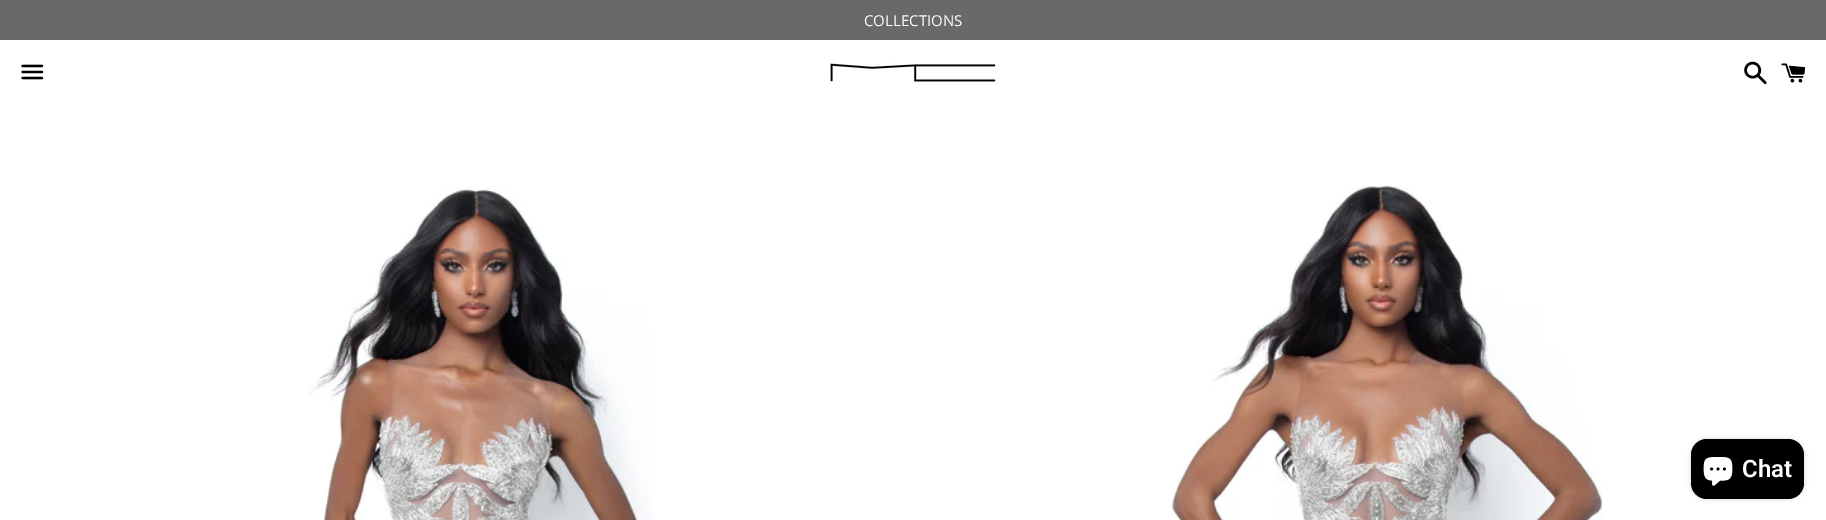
%!PS
<< /PageSize [1826 520] /PageUsesTransparency true >> setpagedevice
/rgb { 3 { 255 div 3 1 roll } repeat setrgbcolor } def
/font { [ exch dup neg 0 0 3 -1 roll 0 0 ] selectfont } def
/text { moveto show } def
/alpha { dup .setfillconstantalpha .setstrokeconstantalpha } def
/roundrect { 5 dict begin { /r /h /w /y /x } { exch def } forall
  x r add y moveto x w add y 2 copy h add r arct x w add y h add x 1 index r arct
  x y h add x y r arct x y 2 copy exch w add exch r arct closepath end } def
/shadow { 12 dict begin { /a /b /q /h /w /y /x } { exch def } forall gsave /was 0 def
  9 -2 -9 { dup b mul 4 div /e exch def 1 sub .425 mul 2.718 exch exp 1 add a .99 .min exch div /now exch def
    1 1 now sub 1 was sub div sub alpha /was now def
    w h .min e 2 mul add 0 gt { x e sub y e sub w e 2 mul add h e 2 mul add
      q e add b .6 mul add w h .min 2 div e add .min 0 .max roundrect fill } if } for grestore end } def
/picture { 5 dict begin { /h /w /y /x /name } { exch def } forall
  gsave x y translate w h scale
  w h 8 [w 0 0 h 0 0] name (r) file false 3 colorimage grestore end } def
0 .pushpdf14devicefilter
0 520 translate 1 -1 scale
4 setmiterlimit
255 255 255 rgb
0 0 1826 520 rectfill
105 105 105 rgb
0 0 1826 40 rectfill
(img_01.rgb) 21 64 23 16 picture
(img_02.rgb) 830 63 166 19 picture
(img_03.rgb) 1744 61 23 24 picture
(img_04.rgb) 1781 63 25 20 picture
(img_05.rgb) 309 186 346 334 picture
(img_06.rgb) 1171 186 432 334 picture
0 0 0 rgb
1691 439 113 60 16 2.5 0.15 shadow
1691 439 113 60 16 roundrect fill
(img_07.rgb) 1703 457 30 29 picture
/OpenSans-Regular 15 font
255 255 255 rgb
(COLLECTIONS) 864 26 text
/Roboto-SemiBold 24 font
(Chat) 1742 477 text
.poppdf14devicefilter showpage
